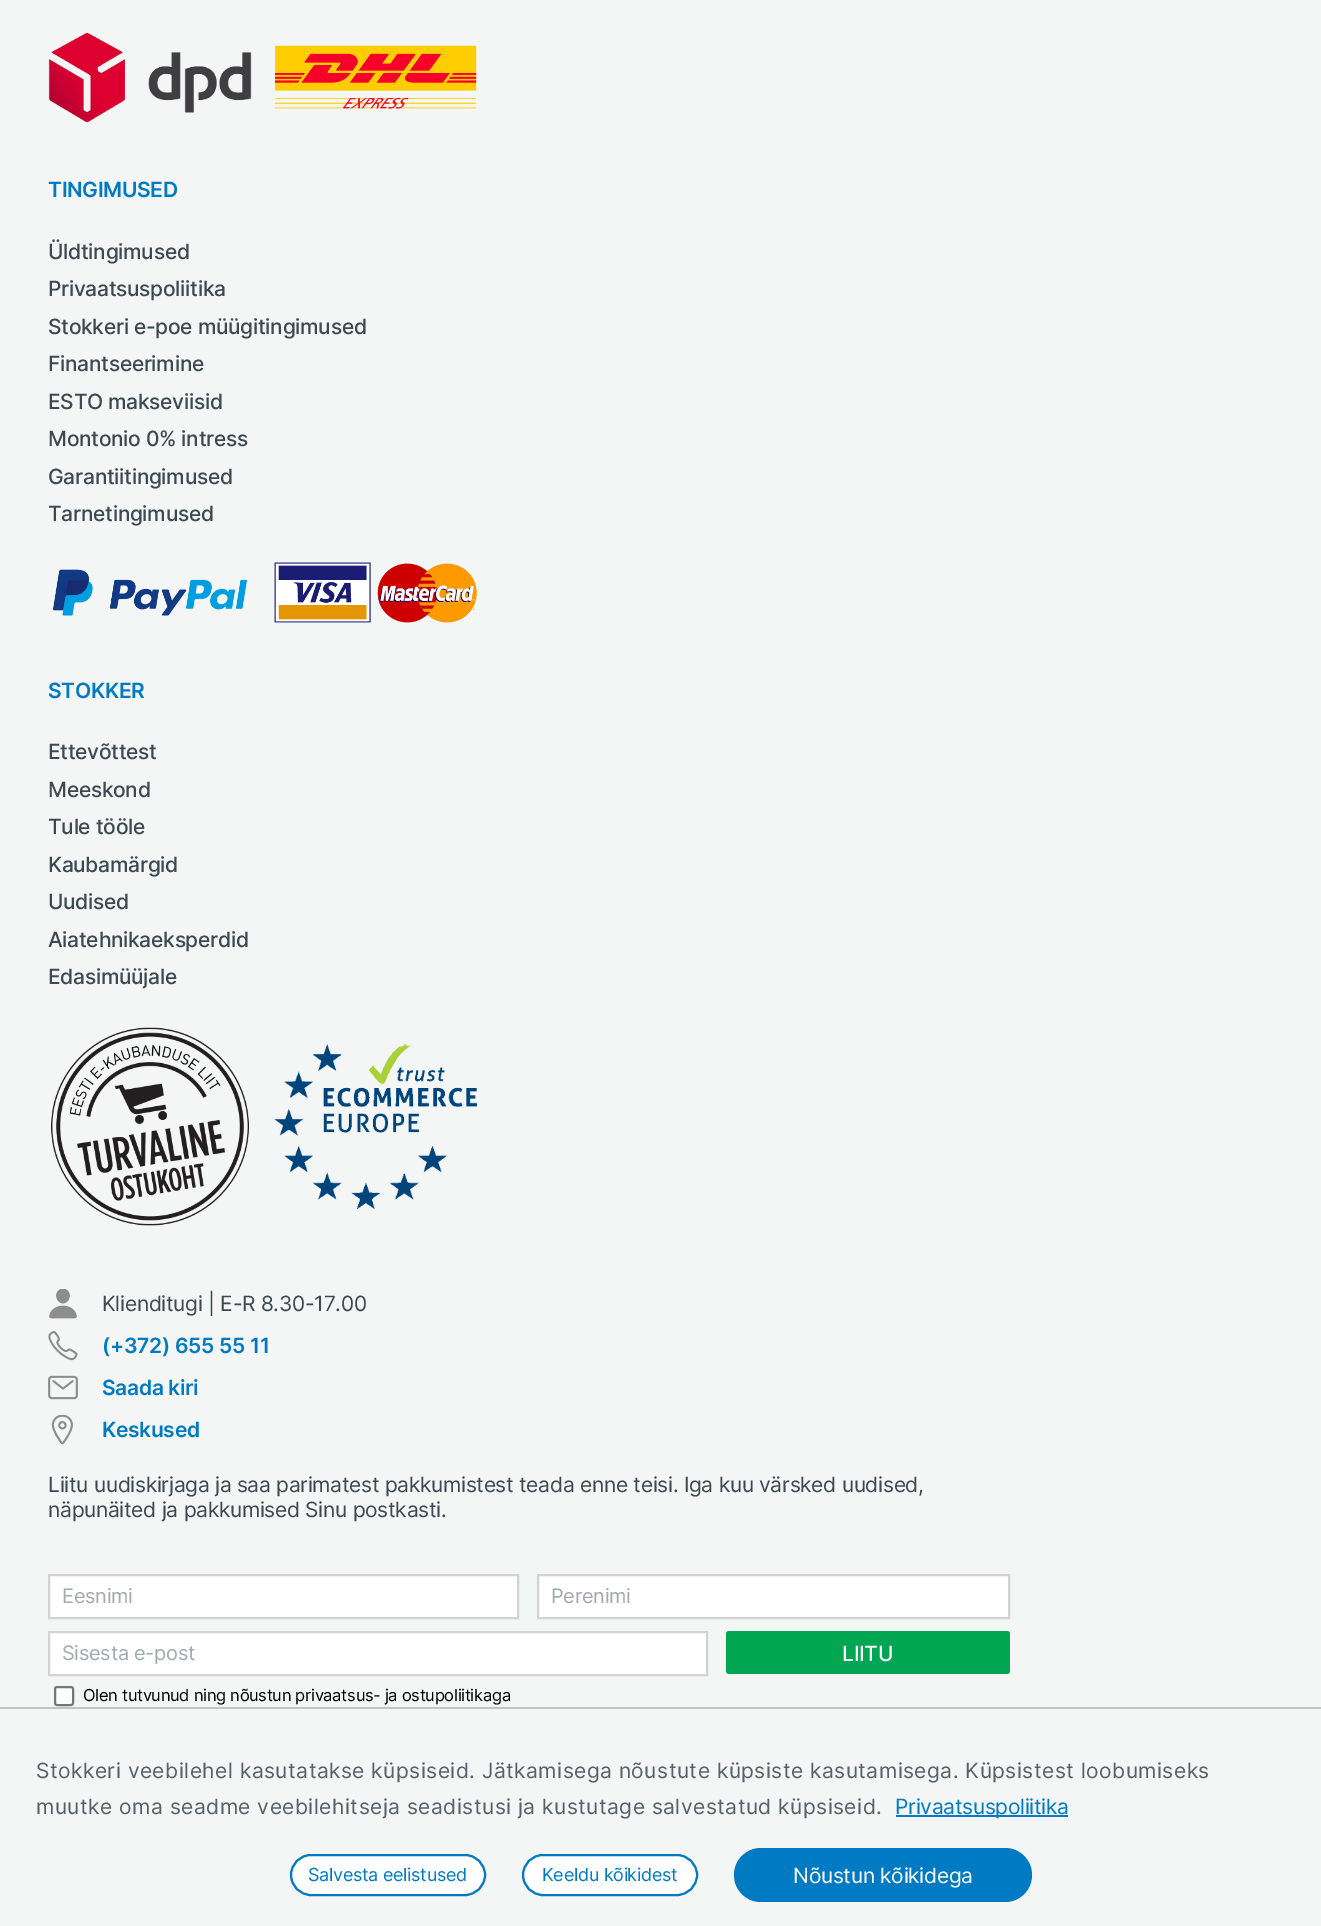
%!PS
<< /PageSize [1321 1926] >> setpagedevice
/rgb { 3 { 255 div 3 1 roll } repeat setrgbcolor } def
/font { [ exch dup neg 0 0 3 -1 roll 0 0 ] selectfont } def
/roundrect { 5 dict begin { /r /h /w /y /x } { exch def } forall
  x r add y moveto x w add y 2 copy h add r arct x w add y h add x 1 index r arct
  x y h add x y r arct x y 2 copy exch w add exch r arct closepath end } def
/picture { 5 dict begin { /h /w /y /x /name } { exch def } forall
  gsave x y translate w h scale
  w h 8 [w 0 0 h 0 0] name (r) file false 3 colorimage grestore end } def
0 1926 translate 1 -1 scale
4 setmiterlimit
244 246 246 rgb
0 0 1321 1926 rectfill
(img_01.rgb) 48 32 204 91 picture
(img_02.rgb) 274 45 203 64 picture
(img_03.rgb) 53 569 195 47 picture
(img_04.rgb) 274 562 203 61 picture
(img_05.rgb) 51 1027 198 199 picture
(img_06.rgb) 274 1044 203 165 picture
(img_07.rgb) 49 1289 28 30 picture
(img_08.rgb) 48 1331 30 30 picture
(img_09.rgb) 48 1375 30 25 picture
(img_10.rgb) 51 1415 22 30 picture
255 255 255 rgb
49 1575 moveto 469 0 rlineto 0 43 rlineto -469 0 rlineto closepath gsave fill grestore
211 211 211 rgb
2 setlinewidth
stroke
255 255 255 rgb
538 1575 moveto 471 0 rlineto 0 43 rlineto -471 0 rlineto closepath gsave fill grestore
211 211 211 rgb
stroke
255 255 255 rgb
49 1632 moveto 658 0 rlineto 0 43 rlineto -658 0 rlineto closepath gsave fill grestore
211 211 211 rgb
stroke
0 166 81 rgb
726 1631 284 43 3 roundrect fill
255 255 255 rgb
55 1687 18 18 2 roundrect gsave fill grestore
118 118 118 rgb
stroke
195 197 197 rgb
0 1707 1321 2 rectfill
0 122 194 rgb
896 1815 172 2 rectfill
255 255 255 rgb
291 1855 194 40 20 roundrect gsave fill grestore
0 122 194 rgb
stroke
255 255 255 rgb
523 1855 174 40 20 roundrect gsave fill grestore
0 122 194 rgb
stroke
734 1848 298 54 27 roundrect fill
/Inter-SemiBold 21 font
48 197 moveto -0.3 0 (TINGIMUSED) ashow
/Inter-Medium 21 font
61 73 80 rgb
48 259 moveto -0.3 0 (Üldtingimused) ashow
48 296 moveto -0.3 0 (Privaatsuspoliitika) ashow
48 334 moveto -0.3 0 (Stokkeri e-poe müügitingimused) ashow
48 371 moveto -0.3 0 (Finantseerimine) ashow
48 409 moveto -0.3 0 (ESTO makseviisid) ashow
48 446 moveto -0.3 0 (Montonio 0% intress) ashow
48 484 moveto -0.3 0 (Garantiitingimused) ashow
48 521 moveto -0.3 0 (Tarnetingimused) ashow
/Inter-SemiBold 21 font
0 122 194 rgb
48 698 moveto -0.3 0 (STOKKER) ashow
/Inter-Medium 21 font
61 73 80 rgb
48 759 moveto -0.3 0 (Ettevõttest) ashow
48 797 moveto -0.3 0 (Meeskond) ashow
48 834 moveto -0.3 0 (Tule tööle) ashow
48 872 moveto -0.3 0 (Kaubamärgid) ashow
48 909 moveto -0.3 0 (Uudised) ashow
48 947 moveto -0.3 0 (Aiatehnikaeksperdid) ashow
48 984 moveto -0.3 0 (Edasimüüjale) ashow
/Inter-Regular 21 font
102 1311 moveto -0.3 0 (Klienditugi | E-R 8.30-17.00) ashow
/Inter-SemiBold 21 font
0 122 194 rgb
102 1353 moveto -0.3 0 (\(+372\) 655 55 11) ashow
102 1395 moveto -0.3 0 (Saada kiri) ashow
102 1437 moveto -0.3 0 (Keskused) ashow
/Inter-Regular 21 font
61 73 80 rgb
48 1492 moveto -0.3 0 (Liitu uudiskirjaga ja saa parimatest pakkumistest teada enne teisi. Iga kuu värsked uudised,) ashow
48 1517 moveto -0.3 0 (näpunäited ja pakkumised Sinu postkasti.) ashow
/Inter-Regular 20 font
163 170 175 rgb
62 1603 moveto -0.3 0 (Eesnimi) ashow
551 1603 moveto -0.3 0 (Perenimi) ashow
62 1660 moveto -0.3 0 (Sisesta e-post) ashow
/Inter-Medium 21 font
255 255 255 rgb
842 1661 moveto -0.3 0 (LIITU) ashow
/Inter-Regular 16.5 font
0 0 0 rgb
83 1701 moveto -0.3 0 (Olen tutvunud ning nõustun privaatsus- ja ostupoliitikaga) ashow
/Inter-Regular 21 font
86 97 104 rgb
36 1778 moveto 0.48 0 (Stokkeri veebilehel kasutatakse küpsiseid. Jätkamisega nõustute küpsiste kasutamisega. Küpsistest loobumiseks) ashow
36 1814 moveto 0.48 0 (muutke oma seadme veebilehitseja seadistusi ja kustutage salvestatud küpsiseid.) ashow
0 122 194 rgb
895 1814 moveto -0.3 0 (Privaatsuspoliitika) ashow
/Inter-Regular 18 font
308 1881 moveto -0.3 0 (Salvesta eelistused) ashow
542 1881 moveto -0.3 0 (Keeldu kõikidest) ashow
/Inter-Regular 21 font
255 255 255 rgb
793 1883 moveto -0.3 0 (Nõustun kõikidega) ashow
showpage
